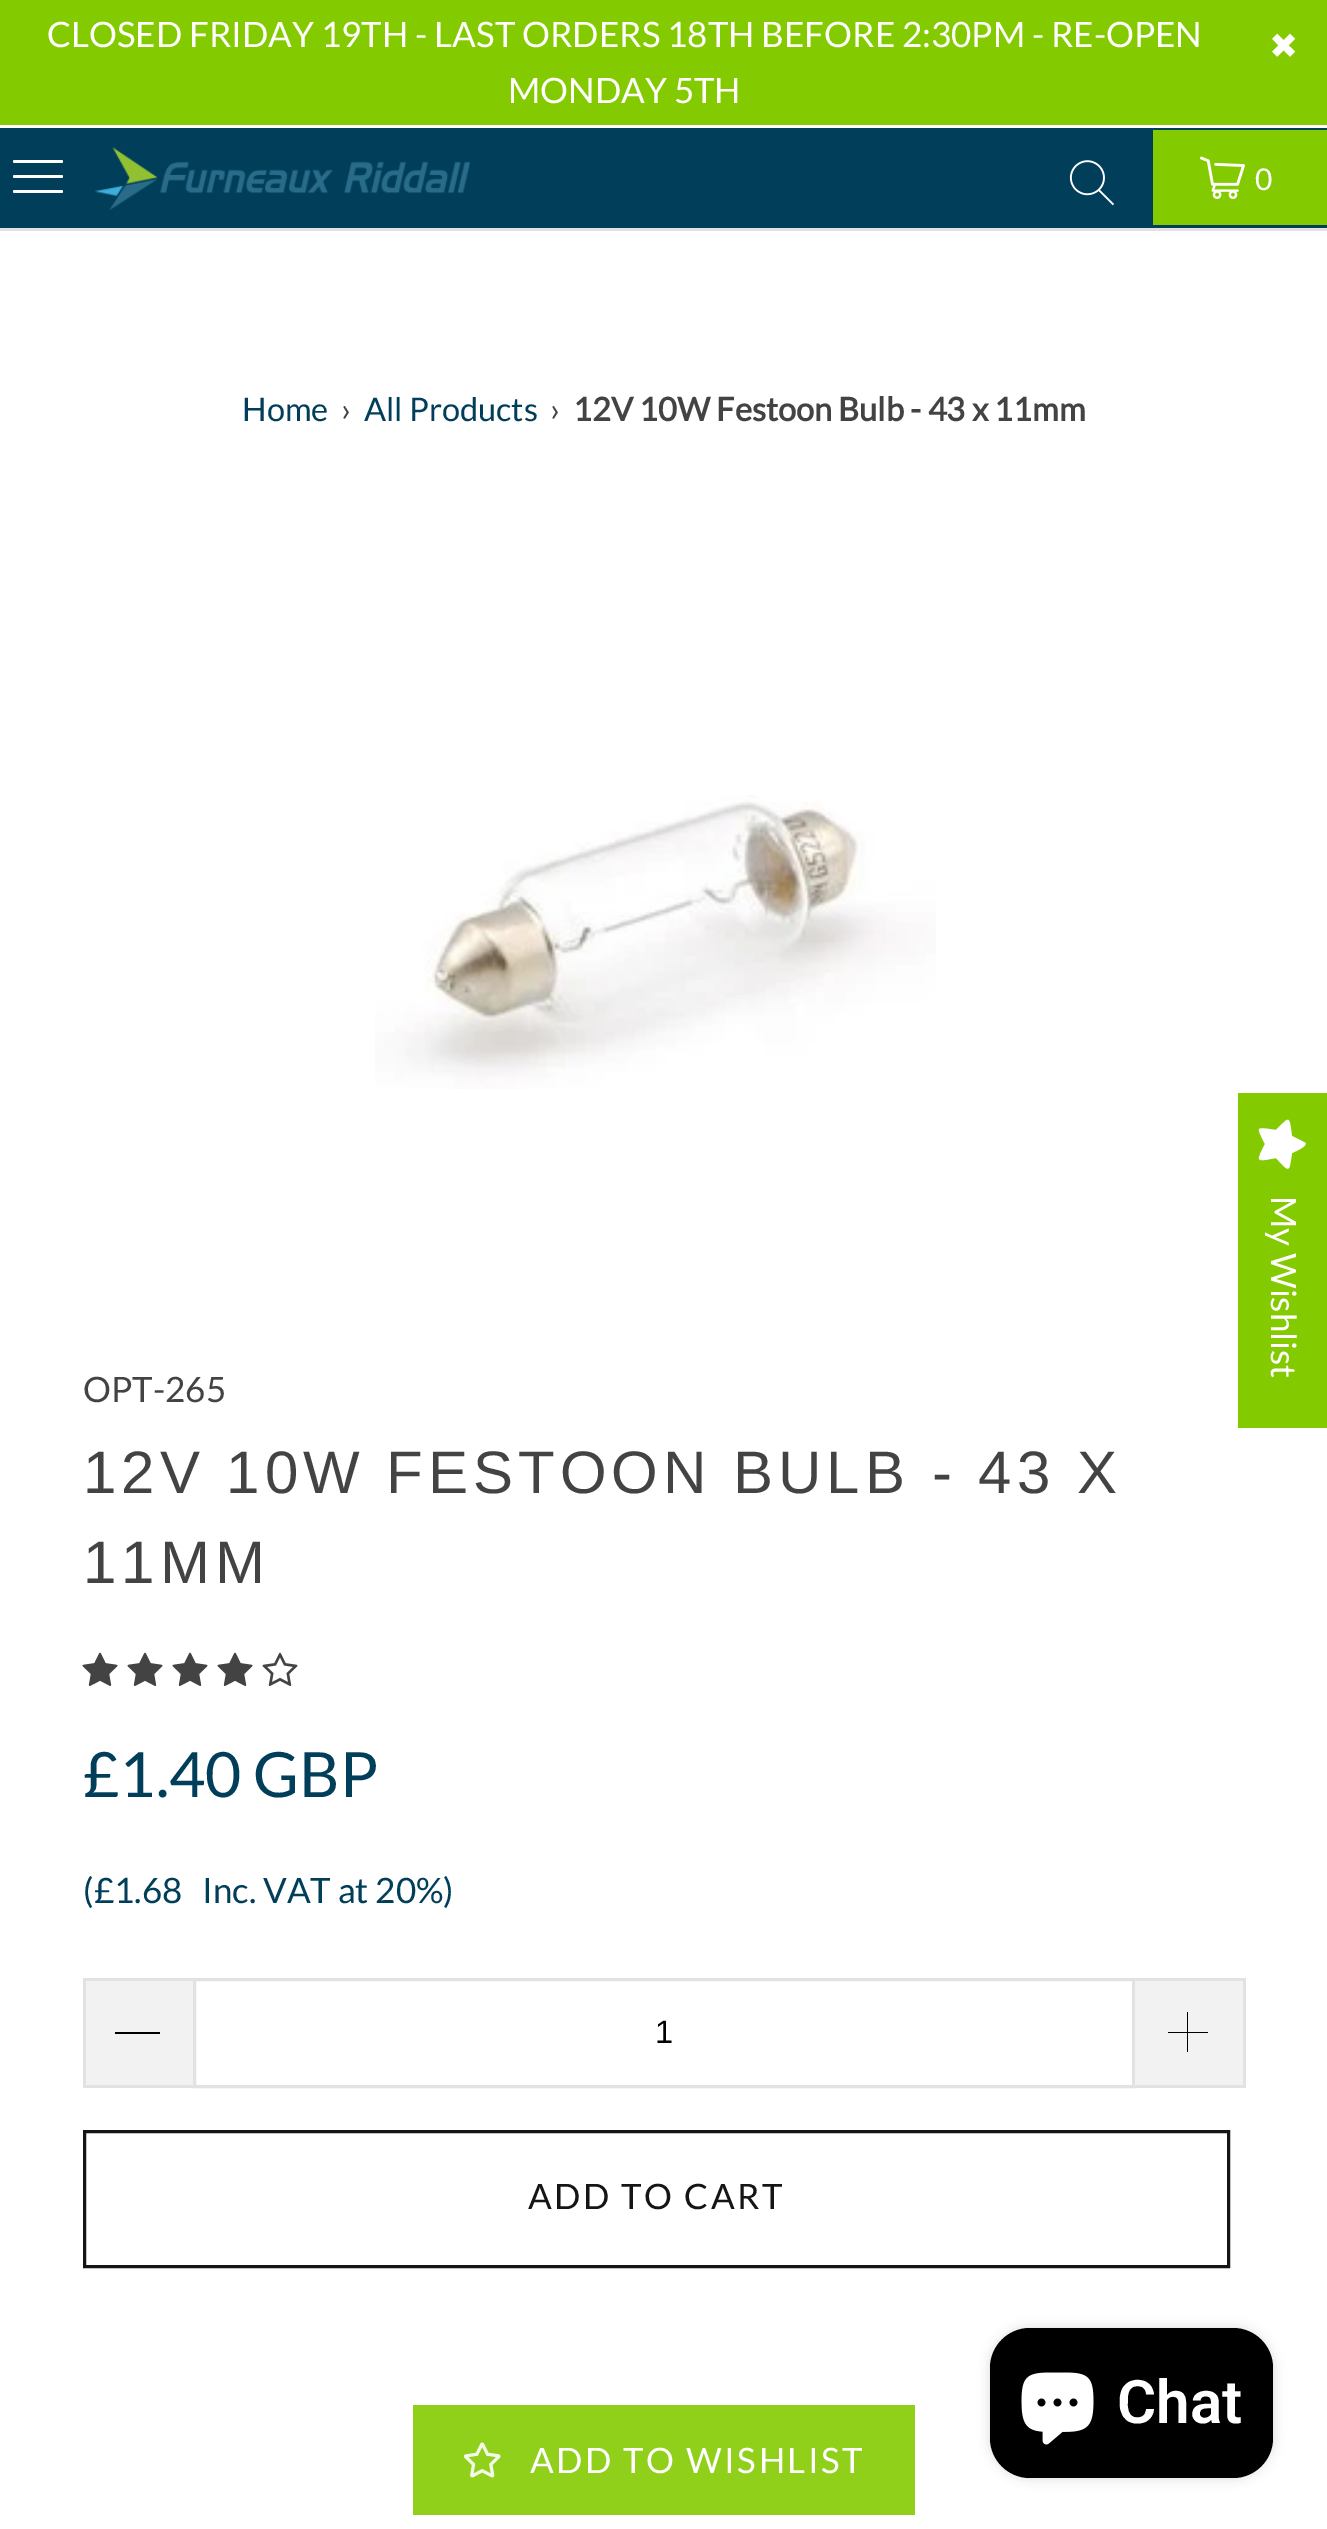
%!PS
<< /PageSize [1327 2529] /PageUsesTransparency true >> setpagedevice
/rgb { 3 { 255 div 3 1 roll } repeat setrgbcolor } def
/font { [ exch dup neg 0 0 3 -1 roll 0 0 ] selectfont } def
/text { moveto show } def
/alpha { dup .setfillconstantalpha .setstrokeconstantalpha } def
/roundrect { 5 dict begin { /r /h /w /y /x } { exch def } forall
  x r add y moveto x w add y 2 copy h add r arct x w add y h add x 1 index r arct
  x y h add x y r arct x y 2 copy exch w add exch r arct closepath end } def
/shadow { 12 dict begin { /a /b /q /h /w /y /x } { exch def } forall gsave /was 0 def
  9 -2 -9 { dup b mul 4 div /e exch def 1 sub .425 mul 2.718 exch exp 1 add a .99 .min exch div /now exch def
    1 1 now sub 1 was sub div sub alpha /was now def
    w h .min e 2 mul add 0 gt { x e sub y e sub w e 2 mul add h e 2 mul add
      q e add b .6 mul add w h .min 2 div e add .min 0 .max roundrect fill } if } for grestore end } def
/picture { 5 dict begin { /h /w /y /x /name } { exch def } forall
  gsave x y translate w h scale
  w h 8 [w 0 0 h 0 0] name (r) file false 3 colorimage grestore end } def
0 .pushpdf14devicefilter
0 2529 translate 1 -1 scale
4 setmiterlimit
255 255 255 rgb
0 0 1327 2529 rectfill
132 202 0 rgb
0 0 1327 125 rectfill
1 62 90 rgb
0 128 1327 100 rectfill
255 255 255 rgb
13 160 50 3 1.5 roundrect fill
13 175 50 3 1.5 roundrect fill
13 190 50 3 1.5 roundrect fill
(img_01.rgb) 95 147 375 63 picture
(img_02.rgb) 1069 160 45 46 picture
132 202 0 rgb
1153 130 174 95 rectfill
(img_03.rgb) 1200 156 45 43 picture
226 226 226 rgb
0 228 1327 3 rectfill
(img_04.rgb) 375 795 561 294 picture
(img_05.rgb) 82 1652 36 34 picture
(img_05.rgb) 127 1652 36 34 picture
(img_05.rgb) 172 1652 36 34 picture
(img_05.rgb) 217 1652 36 34 picture
(img_06.rgb) 262 1652 36 34 picture
242 242 242 rgb
86 1981 107 104 rectfill
226 226 226 rgb
83 1978 110 3 rectfill
83 2085 110 3 rectfill
83 1978 3 110 rectfill
0 0 0 rgb
115 2032 45 2 rectfill
226 226 226 rgb
3 setlinewidth
194.5 1979.5 939 107 rectstroke
242 242 242 rgb
1135 1981 108 104 rectfill
226 226 226 rgb
1135 1978 110 3 rectfill
1243 1978 3 110 rectfill
1135 2085 110 3 rectfill
0 0 0 rgb
1208 2032 moveto -20 0 rlineto 0 -20 rlineto -1 0 rlineto 0 20 rlineto -19 0 rlineto 0 1 rlineto 19 0 rlineto 0 19 rlineto 1 0 rlineto 0 -19 rlineto 20 0 rlineto closepath fill
21 21 21 rgb
84.5 2131.5 1144 135 rectstroke
144 207 26 rgb
413 2405 502 110 rectfill
(img_07.rgb) 463 2442 38 36 picture
132 202 0 rgb
1238 1093 89 335 rectfill
255 255 255 rgb
1304 1142 moveto -12 -6 rlineto -3 -21 -2 -20 -16 -6 rcurveto -21 -3 -20 -4 -11 14 rcurveto -9 18 -10 18 11 14 rcurveto 14 15 13 15 16 -5 rcurveto 2 -1 19 -8 12 -11 rcurveto closepath fill
0 0 0 rgb
990 2328 283 150 40 6 0.15 shadow
990 2328 283 150 40 roundrect fill
(img_08.rgb) 1021 2372 73 73 picture
/Lato-Regular 35 font
255 255 255 rgb
(CLOSED FRIDAY 19TH - LAST ORDERS 18TH BEFORE 2:30PM - RE-OPEN) 47 47 text
(MONDAY 5TH) 508 103 text
/DejaVuSans-Regular 35 font
(✖) 1269 58 text
/Lato-Regular 30 font
1255 190 moveto 2.5 0 (0) ashow
/Lato-Regular 32.5 font
1 62 90 rgb
(Home) 242 421 text
67 67 67 rgb
(›) 341 421 text
1 62 90 rgb
(All Products) 364 421 text
67 67 67 rgb
(›) 550 421 text
/Lato-Bold 32.5 font
(12V 10W Festoon Bulb - 43 x 11mm) 573 421 text
/Lato-Regular 35 font
(OPT-265) 83 1402 text
/LiberationSans-Regular 60 font
83 1493 moveto 5 0 (12V 10W FESTOON BULB - 43 X) ashow
83 1583 moveto 5 0 (11MM) ashow
/Lato-Regular 62.5 font
1 62 90 rgb
(£1.40 GBP) 83 1797 text
/Lato-Regular 35 font
(\(£1.68) 83 1903 text
(Inc. VAT at 20%\)) 202 1903 text
/LiberationSans-Regular 32.5 font
0 0 0 rgb
(1) 655 2043 text
/Lato-Regular 35 font
21 21 21 rgb
528 2209 moveto 2.5 0 (ADD TO CART) ashow
255 255 255 rgb
530 2473 moveto 2.5 0 (ADD TO WISHLIST) ashow
gsave 1271 1196 translate 90 rotate 0 0 moveto (My Wishlist) show grestore
/Roboto-SemiBold 60 font
(Chat) 1117 2423 text
.poppdf14devicefilter showpage
